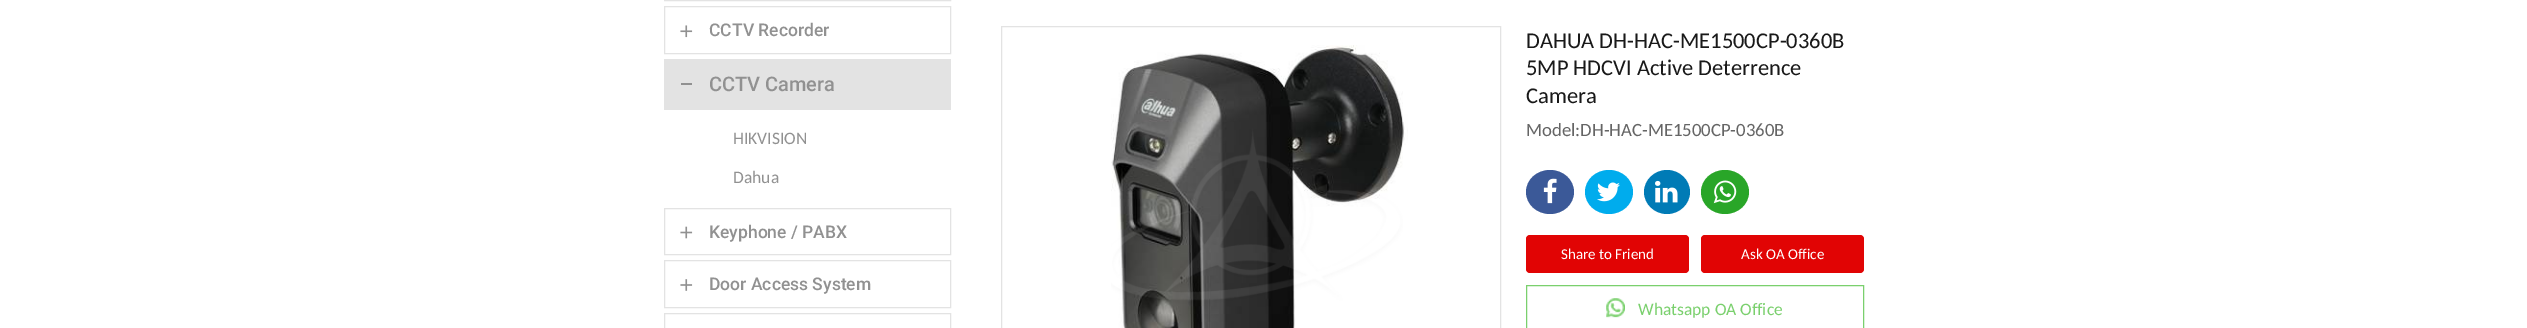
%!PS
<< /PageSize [2527 328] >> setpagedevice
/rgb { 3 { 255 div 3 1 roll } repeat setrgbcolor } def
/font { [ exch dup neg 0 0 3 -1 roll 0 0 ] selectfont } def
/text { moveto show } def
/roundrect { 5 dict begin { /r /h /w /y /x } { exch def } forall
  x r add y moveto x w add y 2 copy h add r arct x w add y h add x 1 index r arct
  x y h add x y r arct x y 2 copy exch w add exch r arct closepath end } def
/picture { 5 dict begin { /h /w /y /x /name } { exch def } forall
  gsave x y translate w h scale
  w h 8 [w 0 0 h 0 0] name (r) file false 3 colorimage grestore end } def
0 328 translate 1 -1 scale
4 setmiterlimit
255 255 255 rgb
0 0 2527 328 rectfill
227 227 227 rgb
664.5 -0.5 286 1 rectstroke
664.5 6.5 286 47 rectstroke
(img_01.rgb) 680 25 13 13 picture
664 59 287 51 rectfill
145 145 145 rgb
681 83 11 2 rectfill
227 227 227 rgb
664.5 208.5 286 46 rectstroke
(img_02.rgb) 680 226 13 13 picture
664.5 260.5 286 47 rectstroke
(img_03.rgb) 680 279 13 12 picture
664.5 313.5 286 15 rectstroke
1001.5 26.5 499 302 rectstroke
(img_04.rgb) 1111 45 297 283 picture
59 89 152 rgb
1550 170 moveto 13.5 0 24 10 24 22 rcurveto 0 12 -10.5 22 -24 22 rcurveto -13.5 0 -24 -10 -24 -22 rcurveto 0 -12 10.5 -22 24 -22 rcurveto closepath fill
(img_05.rgb) 1543 178 14 26 picture
0 172 237 rgb
1609 170 moveto 13.5 0 24 10 24 22 rcurveto 0 12 -10.5 22 -24 22 rcurveto -13.5 0 -24 -10 -24 -22 rcurveto 0 -12 10.5 -22 24 -22 rcurveto closepath fill
(img_06.rgb) 1597 182 23 20 picture
0 123 182 rgb
1667 170 moveto 12.5 0 23 10 23 22 rcurveto 0 12 -10.5 22 -23 22 rcurveto -12.5 0 -23 -10 -23 -22 rcurveto 0 -12 10.5 -22 23 -22 rcurveto closepath fill
(img_07.rgb) 1655 180 23 23 picture
41 166 40 rgb
1725 170 moveto 13.5 0 24 10 24 22 rcurveto 0 12 -10.5 22 -24 22 rcurveto -13.5 0 -24 -10 -24 -22 rcurveto 0 -12 10.5 -22 24 -22 rcurveto closepath fill
(img_08.rgb) 1713 180 24 24 picture
225 4 4 rgb
1526 235 163 38 4 roundrect fill
1701 235 163 38 4 roundrect fill
(img_09.rgb) 1606 298 19 20 picture
122 208 109 rgb
1526.5 285.5 337 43 rectstroke
/Roboto-Medium 17.5 font
145 145 145 rgb
(CCTV Recorder) 709 36 text
/Roboto-Medium 20 font
(CCTV Camera) 709 91 text
/Carlito-Regular 17.5 font
(HIKVISION) 733 144 text
(Dahua) 733 183 text
/Roboto-Medium 17.5 font
(Keyphone / PABX) 709 238 text
(Door Access System) 709 290 text
/Carlito-Regular 22.5 font
25 25 25 rgb
(DAHUA DH-HAC-ME1500CP-0360B) 1526 48 text
(5MP HDCVI Active Deterrence) 1526 75 text
(Camera) 1526 103 text
/Carlito-Regular 18.75 font
101 101 101 rgb
(Model:DH-HAC-ME1500CP-0360B) 1526 136 text
/Carlito-Regular 15 font
255 255 255 rgb
(Share to Friend) 1561 259 text
(Ask OA Office) 1741 259 text
/Carlito-Regular 17.5 font
122 208 109 rgb
(Whatsapp OA Office) 1638 315 text
showpage
